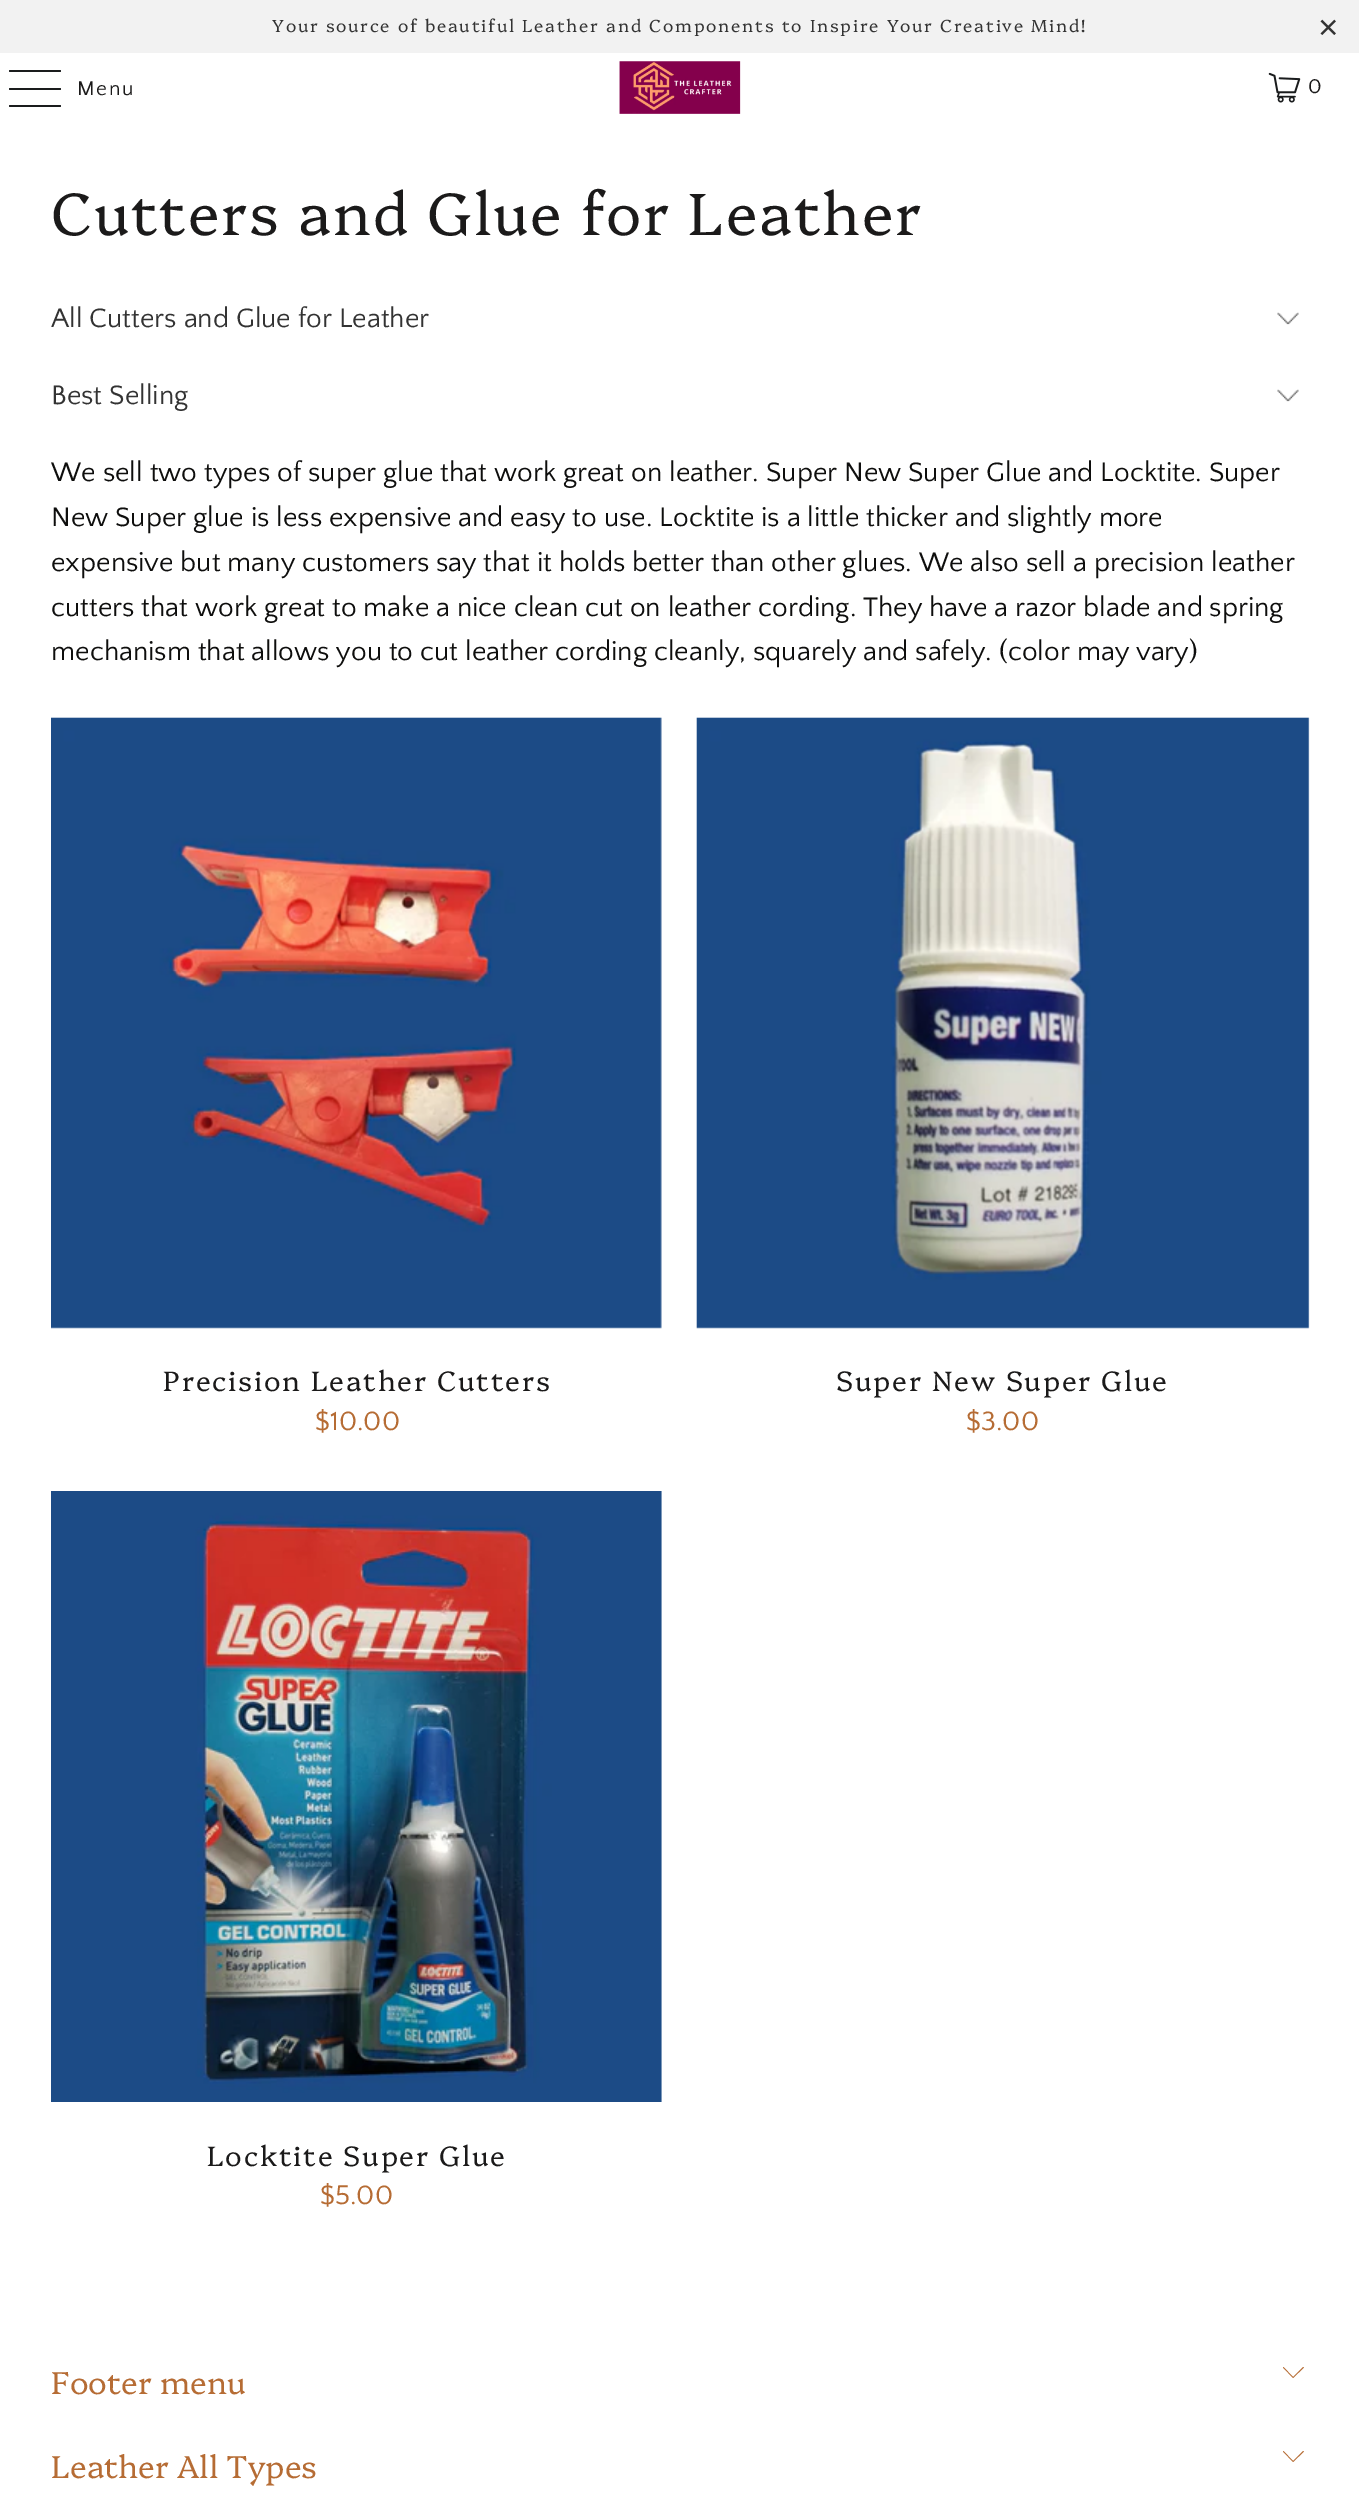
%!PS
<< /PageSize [1359 2517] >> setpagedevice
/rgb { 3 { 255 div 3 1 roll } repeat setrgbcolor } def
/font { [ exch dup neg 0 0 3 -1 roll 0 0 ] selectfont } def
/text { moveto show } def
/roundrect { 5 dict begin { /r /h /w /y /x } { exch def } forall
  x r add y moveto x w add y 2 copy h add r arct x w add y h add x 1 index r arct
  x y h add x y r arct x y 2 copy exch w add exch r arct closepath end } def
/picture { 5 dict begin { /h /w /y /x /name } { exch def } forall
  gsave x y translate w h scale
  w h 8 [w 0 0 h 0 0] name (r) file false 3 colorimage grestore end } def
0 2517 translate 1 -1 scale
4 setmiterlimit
255 255 255 rgb
0 0 1359 2517 rectfill
242 242 242 rgb
0 0 1359 53 rectfill
26 28 29 rgb
9 70 52 2 1 roundrect fill
9 88 52 2 1 roundrect fill
9 105 52 2 1 roundrect fill
(img_01.rgb) 619 61 122 53 picture
(img_02.rgb) 1268 72 33 31 picture
(img_03.rgb) 1277 312 22 13 picture
(img_03.rgb) 1277 389 22 13 picture
(img_04.rgb) 51 717 611 612 picture
(img_05.rgb) 696 717 614 612 picture
(img_06.rgb) 51 1491 611 611 picture
182 108 52 rgb
1293 2378 moveto -10 -10.5 rlineto 0.5 -0.5 rlineto 9.5 10 rlineto 10 -10 rlineto 1 0.5 rlineto closepath fill
1293 2462 moveto -10 -10.5 rlineto 0.5 -0.5 rlineto 9.5 10 rlineto 10 -10 rlineto 1 0.5 rlineto closepath fill
/Platypi-Light 17.5 font
51 51 51 rgb
272 32 moveto 1.75 0 (Your source of beautiful Leather and Components to Inspire Your Creative Mind!) ashow
/LiberationSans-Regular 35 font
1318 39 moveto 1.75 0 (×) ashow
/QuattrocentoSans-Regular 21 font
27 26 26 rgb
77 95 moveto 1.75 0 (Menu) ashow
1308 93 moveto 1.75 0 (0) ashow
/Platypi-Light 59.5 font
51 235 moveto 1.75 0 (Cutters and Glue for Leather) ashow
/QuattrocentoSans-Regular 28 font
51 51 51 rgb
(All Cutters and Glue for Leather) 51 327 text
(Best Selling) 51 404 text
14 14 13 rgb
(We sell two types of super glue that work great on leather. Super New Super Glue and Locktite. Super) 51 481 text
(New Super glue is less expensive and easy to use. Locktite is a little thicker and slightly more) 51 526 text
(expensive but many customers say that it holds better than other glues. We also sell a precision leather) 51 571 text
(cutters that work great to make a nice clean cut on leather cording. They have a razor blade and spring) 51 616 text
(mechanism that allows you to cut leather cording cleanly, squarely and safely. \(color may vary\)) 51 660 text
/Platypi-Light 28 font
27 26 26 rgb
163 1391 moveto 1.75 0 (Precision Leather Cutters) ashow
/QuattrocentoSans-Regular 28 font
182 108 52 rgb
($10.00) 315 1430 text
/Platypi-Light 28 font
27 26 26 rgb
836 1391 moveto 1.75 0 (Super New Super Glue) ashow
/QuattrocentoSans-Regular 28 font
182 108 52 rgb
($3.00) 966 1430 text
/Platypi-Light 28 font
27 26 26 rgb
207 2166 moveto 1.75 0 (Locktite Super Glue) ashow
/QuattrocentoSans-Regular 28 font
182 108 52 rgb
($5.00) 320 2204 text
/Platypi-Light 31.5 font
(Footer menu) 51 2394 text
(Leather All Types) 51 2478 text
showpage
